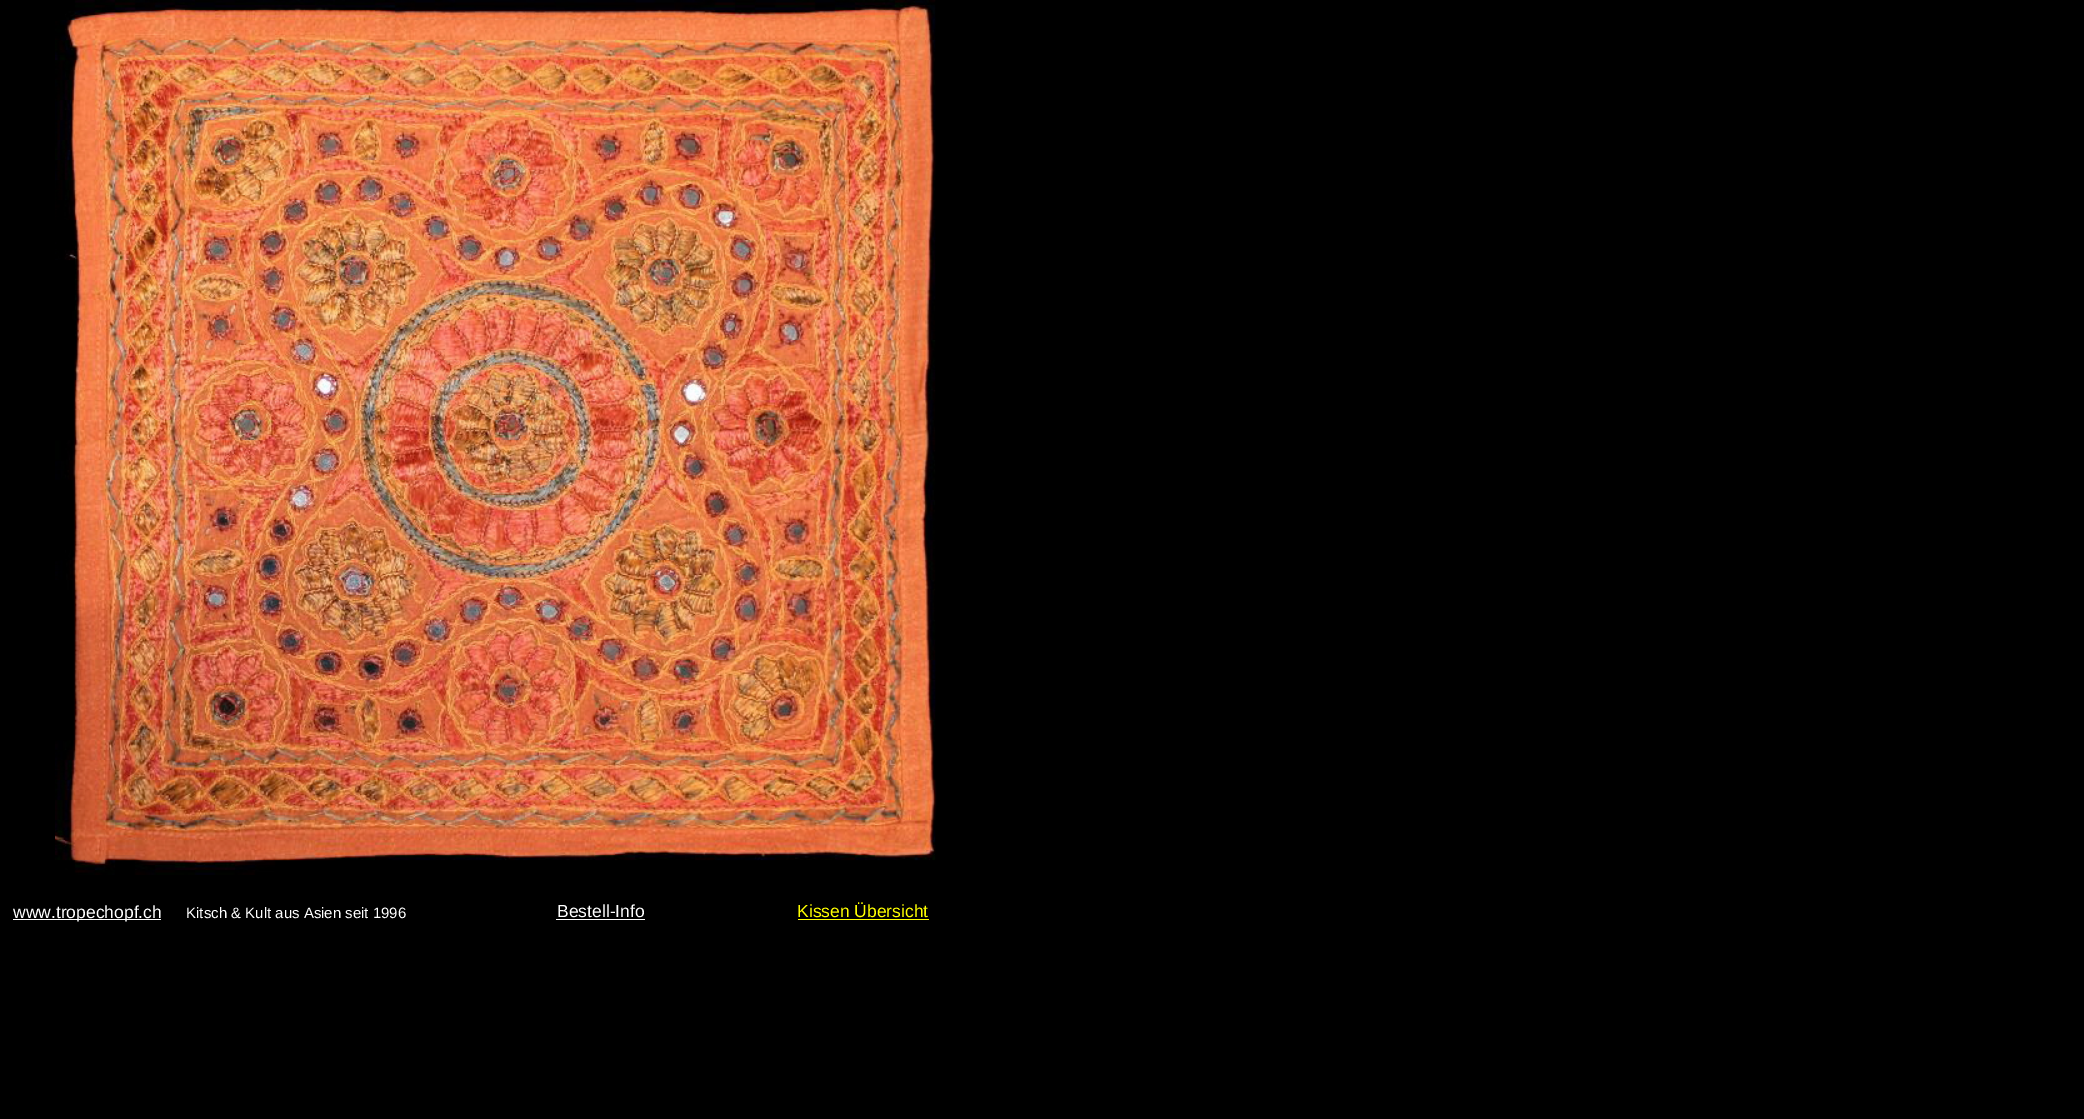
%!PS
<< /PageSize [2084 1119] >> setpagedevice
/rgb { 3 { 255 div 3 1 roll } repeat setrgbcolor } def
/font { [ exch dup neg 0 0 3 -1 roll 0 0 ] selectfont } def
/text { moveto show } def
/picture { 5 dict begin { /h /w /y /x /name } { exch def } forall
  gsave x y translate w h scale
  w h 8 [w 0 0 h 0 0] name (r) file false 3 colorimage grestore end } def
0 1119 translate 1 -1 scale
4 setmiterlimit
0 0 0 rgb
0 0 2084 1119 rectfill
(img_01.rgb) 55 0 882 875 picture
255 255 255 rgb
13 919 148 1 rectfill
556 919 89 1 rectfill
255 255 0 rgb
798 919 131 1 rectfill
/LiberationSans-Regular 17.5 font
255 255 255 rgb
(www.tropechopf.ch) 13 918 text
/LiberationSans-Regular 15 font
(Kitsch & Kult aus Asien seit 1996) 186 918 text
/LiberationSans-Regular 17.5 font
(Bestell-Info) 557 917 text
255 255 0 rgb
(Kissen Übersicht) 797 917 text
showpage
